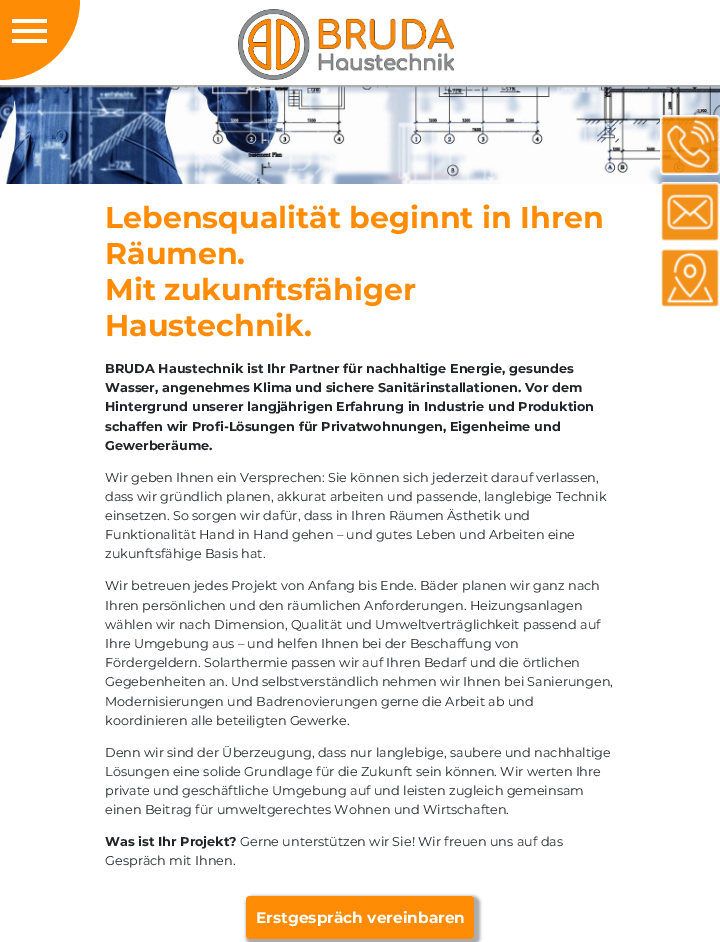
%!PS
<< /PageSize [720 942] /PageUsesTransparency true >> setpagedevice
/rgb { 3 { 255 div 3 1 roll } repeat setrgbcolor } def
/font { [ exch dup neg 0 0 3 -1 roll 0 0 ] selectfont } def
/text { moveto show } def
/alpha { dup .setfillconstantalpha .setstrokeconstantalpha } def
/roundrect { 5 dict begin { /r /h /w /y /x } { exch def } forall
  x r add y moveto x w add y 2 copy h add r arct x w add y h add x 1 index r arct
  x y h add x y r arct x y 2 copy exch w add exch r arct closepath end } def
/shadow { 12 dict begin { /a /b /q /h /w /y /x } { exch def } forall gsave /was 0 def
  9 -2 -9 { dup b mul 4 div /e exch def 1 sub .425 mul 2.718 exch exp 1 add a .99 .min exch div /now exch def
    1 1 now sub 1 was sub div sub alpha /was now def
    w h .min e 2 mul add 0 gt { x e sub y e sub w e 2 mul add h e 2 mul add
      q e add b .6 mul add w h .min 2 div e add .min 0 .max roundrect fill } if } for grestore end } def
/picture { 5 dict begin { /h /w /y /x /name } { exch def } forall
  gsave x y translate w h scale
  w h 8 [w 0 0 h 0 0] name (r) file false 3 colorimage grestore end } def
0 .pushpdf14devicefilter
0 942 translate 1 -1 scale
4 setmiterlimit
255 255 255 rgb
0 0 720 942 rectfill
(img_02.rgb) 0 85 720 99 picture
169 169 169 rgb
0 0 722 87 0 0.5 1 shadow
255 255 255 rgb
0 0 720 85 rectfill
255 140 4 rgb
0 0 moveto 80 0 rlineto 0 44 -36 80 -80 80 rcurveto closepath fill
255 255 255 rgb
12 19 35 4 rectfill
12 29 35 4 rectfill
12 39 35 4 rectfill
(img_01.rgb) 238 9 216 71 picture
169 169 169 rgb
246 896 234 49 7 1.5 1 shadow
255 140 4 rgb
246 896 228 43 4 roundrect fill
(img_03.rgb) 660 115 60 60 picture
(img_04.rgb) 660 182 60 59 picture
(img_05.rgb) 661 249 58 58 picture
/Montserrat-Thin 30 font
(Lebensqualität beginnt in Ihren) 105 228 text
(Räumen.) 105 264 text
(Mit zukunftsfähiger) 105 300 text
(Haustechnik.) 105 336 text
/Montserrat-Thin 12.8 font
33 37 41 rgb
(BRUDA Haustechnik ist Ihr Partner für nachhaltige Energie, gesundes) 105 373 text
(Wasser, angenehmes Klima und sichere Sanitärinstallationen. Vor dem) 105 392 text
(Hintergrund unserer langjährigen Erfahrung in Industrie und Produktion) 105 411 text
(schaffen wir Profi-Lösungen für Privatwohnungen, Eigenheime und) 105 431 text
(Gewerberäume.) 105 450 text
/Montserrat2-Thin 12.8 font
(Wir geben Ihnen ein Versprechen: Sie können sich jederzeit darauf verlassen,) 105 482 text
(dass wir gründlich planen, akkurat arbeiten und passende, langlebige Technik) 105 501 text
(einsetzen. So sorgen wir dafür, dass in Ihren Räumen Ästhetik und) 105 520 text
(Funktionalität Hand in Hand gehen – und gutes Leben und Arbeiten eine) 105 539 text
(zukunftsfähige Basis hat.) 105 558 text
(Wir betreuen jedes Projekt von Anfang bis Ende. Bäder planen wir ganz nach) 105 590 text
(Ihren persönlichen und den räumlichen Anforderungen. Heizungsanlagen) 105 610 text
(wählen wir nach Dimension, Qualität und Umweltverträglichkeit passend auf) 105 629 text
(Ihre Umgebung aus – und helfen Ihnen bei der Beschaffung von) 105 648 text
(Fördergeldern. Solarthermie passen wir auf Ihren Bedarf und die örtlichen) 105 667 text
(Gegebenheiten an. Und selbstverständlich nehmen wir Ihnen bei Sanierungen,) 105 686 text
(Modernisierungen und Badrenovierungen gerne die Arbeit ab und) 105 706 text
(koordinieren alle beteiligten Gewerke.) 105 725 text
(Denn wir sind der Überzeugung, dass nur langlebige, saubere und nachhaltige) 105 757 text
(Lösungen eine solide Grundlage für die Zukunft sein können. Wir werten Ihre) 105 776 text
(private und geschäftliche Umgebung auf und leisten zugleich gemeinsam) 105 795 text
(einen Beitrag für umweltgerechtes Wohnen und Wirtschaften.) 105 814 text
/Montserrat-Thin 12.8 font
(Was ist Ihr Projekt?) 105 846 text
/Montserrat2-Thin 12.8 font
(Gerne unterstützen wir Sie! Wir freuen uns auf das) 240 846 text
(Gespräch mit Ihnen.) 105 865 text
/Montserrat-Thin 15.4 font
255 255 255 rgb
(Erstgespräch vereinbaren) 256 923 text
.poppdf14devicefilter showpage
